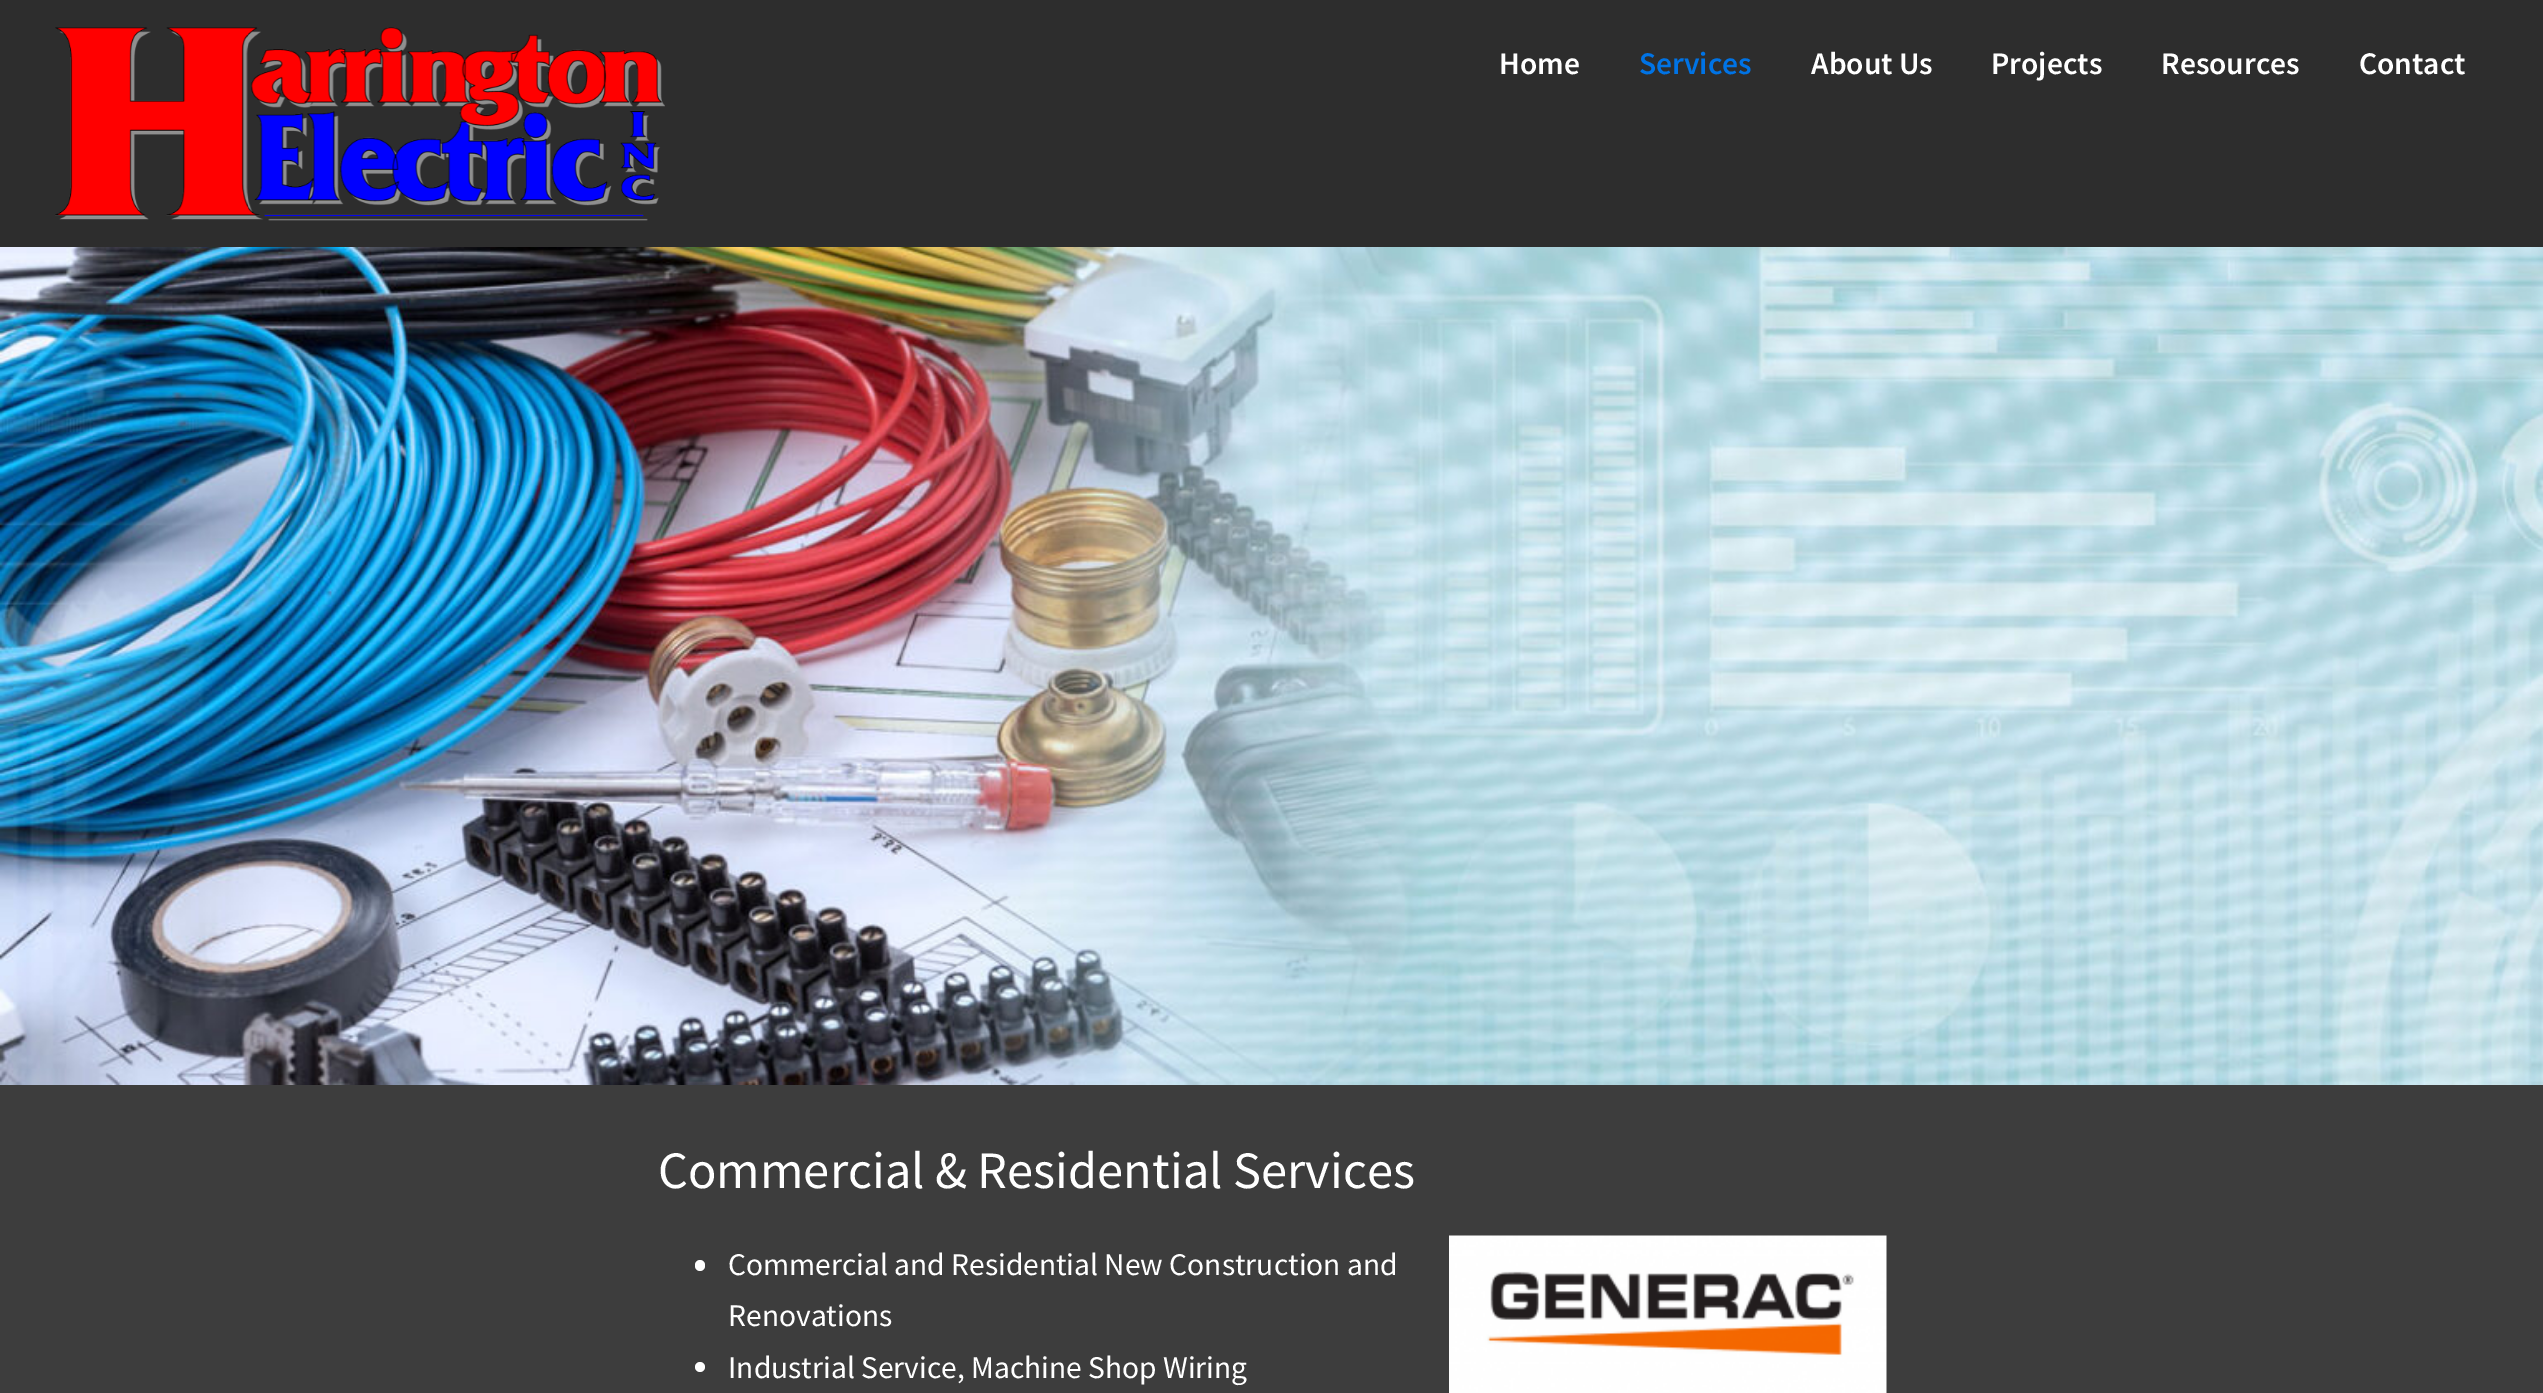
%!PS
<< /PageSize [2543 1393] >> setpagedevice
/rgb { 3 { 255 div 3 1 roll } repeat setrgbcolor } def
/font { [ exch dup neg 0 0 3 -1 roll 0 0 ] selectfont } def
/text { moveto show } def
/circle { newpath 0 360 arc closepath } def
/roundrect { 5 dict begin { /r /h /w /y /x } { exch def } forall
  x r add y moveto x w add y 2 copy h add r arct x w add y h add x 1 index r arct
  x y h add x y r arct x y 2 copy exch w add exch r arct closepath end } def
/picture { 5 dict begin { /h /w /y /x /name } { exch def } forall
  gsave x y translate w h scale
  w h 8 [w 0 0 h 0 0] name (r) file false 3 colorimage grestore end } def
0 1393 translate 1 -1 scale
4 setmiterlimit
61 61 61 rgb
0 0 2543 1393 rectfill
45 45 45 rgb
0 0 2543 247 rectfill
(img_01.rgb) 55 27 610 194 picture
(img_02.rgb) 0 247 2543 838 picture
255 255 255 rgb
695 1260 10 11 5 roundrect fill
700 1367 5 circle fill
(img_03.rgb) 1449 1235 438 158 picture
/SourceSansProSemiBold-SemiBold 31.5 font
(Home) 1499 74 text
0 115 229 rgb
(Services) 1639 74 text
255 255 255 rgb
(About Us) 1811 74 text
(Projects) 1991 74 text
(Resources) 2161 74 text
(Contact) 2359 74 text
/SourceSansPro-Regular 52.5 font
(Commercial & Residential Services) 658 1188 text
/SourceSansPro-Regular 31.5 font
(Commercial and Residential New Construction and) 728 1275 text
(Renovations) 728 1326 text
(Industrial Service, Machine Shop Wiring) 728 1378 text
showpage
